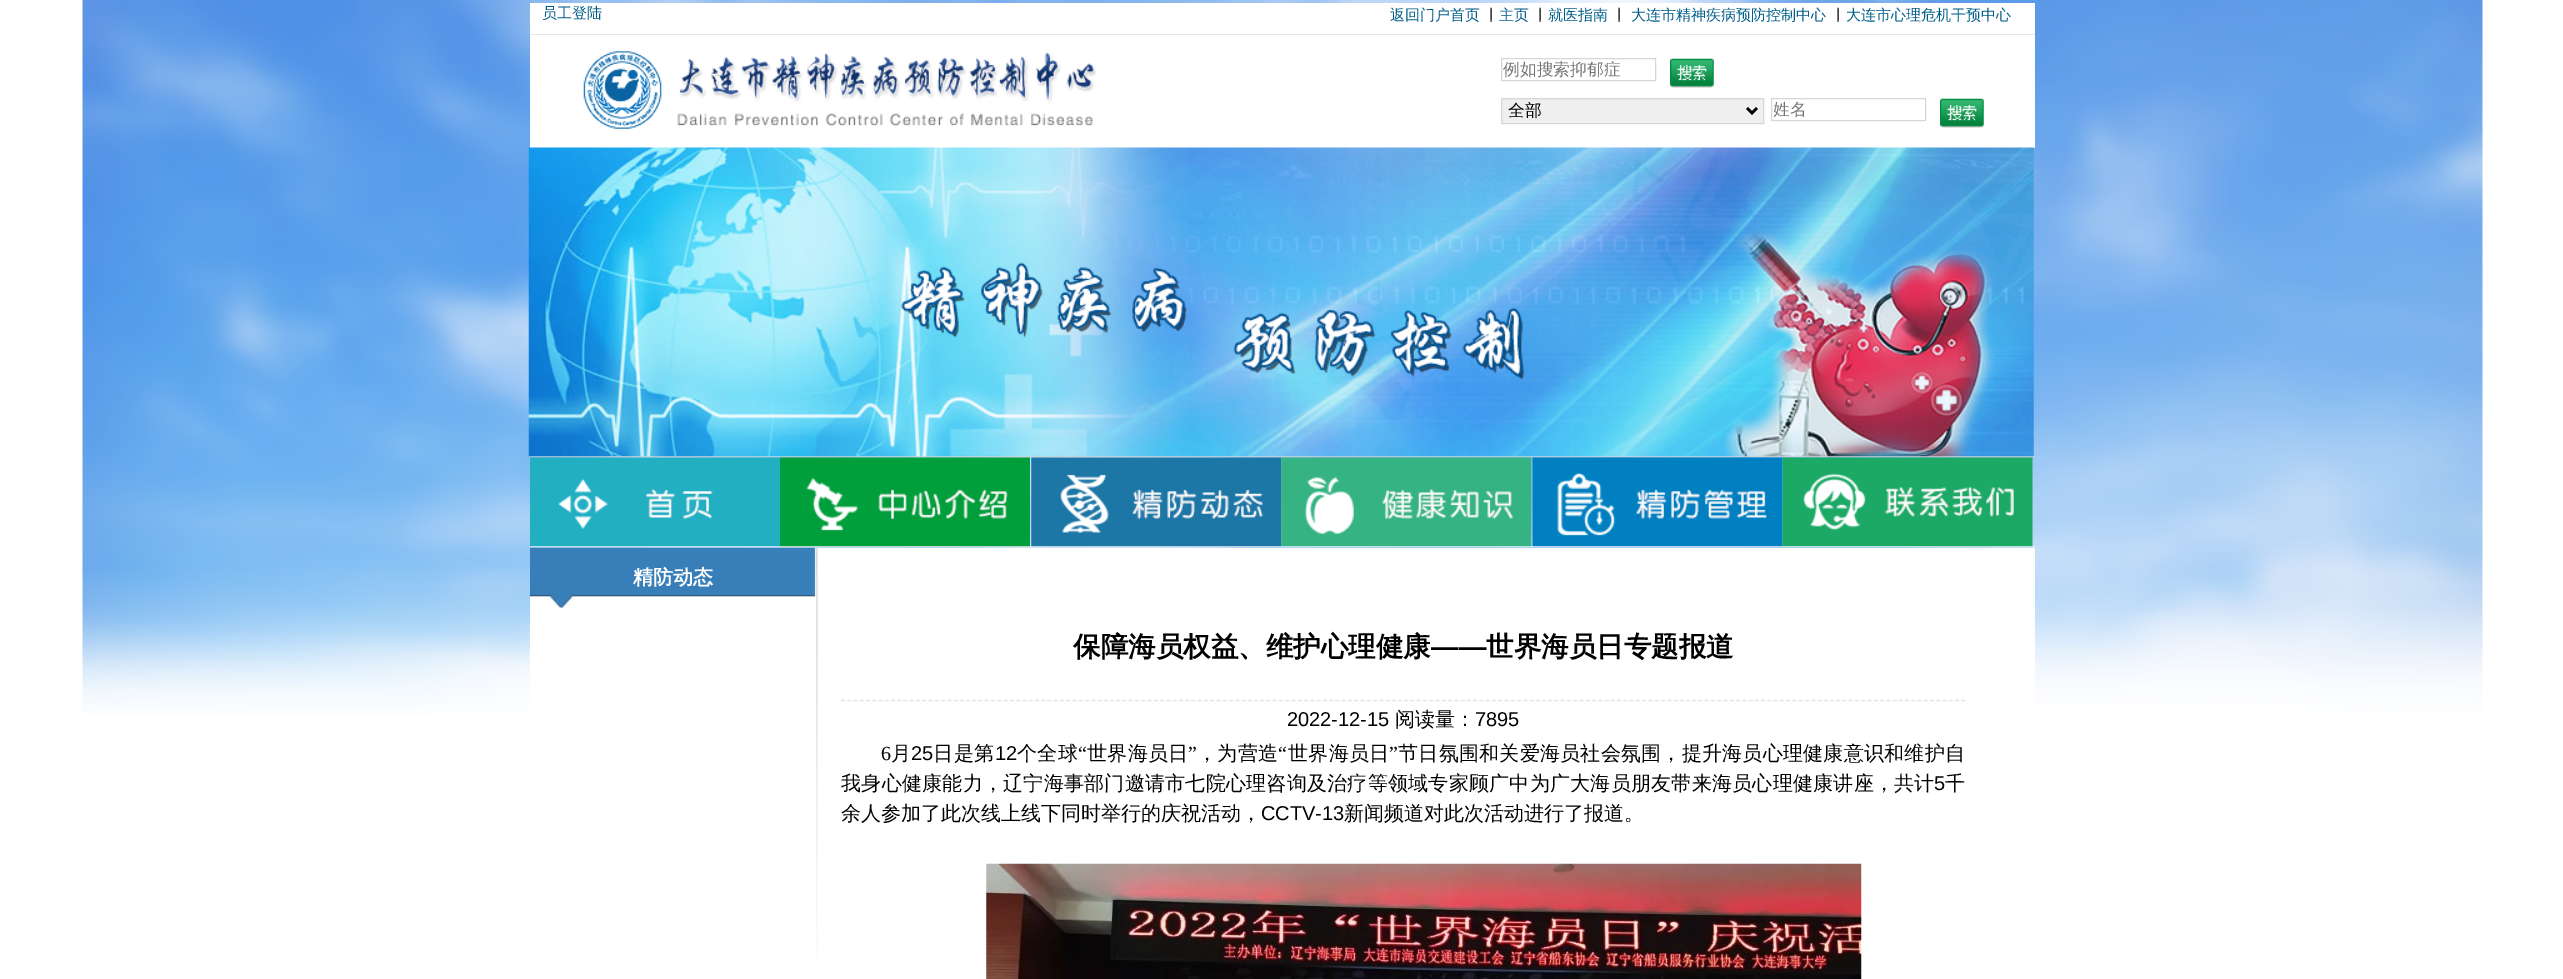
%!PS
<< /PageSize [2563 979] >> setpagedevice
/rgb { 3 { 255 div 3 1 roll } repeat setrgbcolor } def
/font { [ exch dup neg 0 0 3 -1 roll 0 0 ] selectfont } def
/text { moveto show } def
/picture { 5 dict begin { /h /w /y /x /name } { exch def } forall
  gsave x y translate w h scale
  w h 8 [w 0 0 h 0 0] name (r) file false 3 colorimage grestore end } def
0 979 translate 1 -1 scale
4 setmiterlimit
255 255 255 rgb
0 0 2563 979 rectfill
(img_01.rgb) 82 0 2401 714 picture
530 3 1505 31 rectfill
230 230 230 rgb
530 34 1505 1 rectfill
255 255 255 rgb
530 35 1505 113 rectfill
(img_02.rgb) 583 51 514 78 picture
215 215 215 rgb
1501.5 58.5 154 22 rectstroke
(img_03.rgb) 1670 58 44 30 picture
239 239 239 rgb
1501.5 98.5 moveto 262 0 rlineto 0 25 rlineto -262 0 rlineto closepath gsave fill grestore
215 215 215 rgb
stroke
0 0 0 rgb
2.5 setlinewidth
1747 108 moveto 5 5 rlineto 5 -5 rlineto stroke
215 215 215 rgb
1 setlinewidth
1771.5 98.5 154 22 rectstroke
(img_04.rgb) 1940 98 44 30 picture
210 210 210 rgb
530 456 1505 1 rectfill
(img_05.rgb) 528 147 1506 310 picture
242 242 242 rgb
530 546 1505 1 rectfill
(img_06.rgb) 530 457 250 90 picture
(img_07.rgb) 780 457 250 90 picture
(img_08.rgb) 1031 457 251 90 picture
(img_09.rgb) 1281 457 251 90 picture
(img_10.rgb) 1532 457 251 90 picture
(img_11.rgb) 1782 457 251 90 picture
255 255 255 rgb
530 548 1505 163 rectfill
(img_12.rgb) 530 547 288 410 picture
(img_13.rgb) 530 547 286 61 picture
228 228 228 rgb
1.2 setlinewidth
[3.75 2.51] 0 setdash
841 700.5 moveto 1125 0 rlineto stroke
(img_14.rgb) 986 863 876 116 picture
/WenQuanYiZenHei-Medium 15 font
0 94 138 rgb
(员工登陆) 542 18 text
(返回门户首页) 1390 20 text
0 0 0 rgb
(丨) 1484 20 text
0 94 138 rgb
(主页) 1499 20 text
0 0 0 rgb
(丨) 1533 20 text
0 94 138 rgb
(就医指南) 1548 20 text
0 0 0 rgb
(丨) 1612 20 text
0 94 138 rgb
(大连市精神疾病预防控制中心) 1631 20 text
0 0 0 rgb
(丨) 1831 20 text
0 94 138 rgb
(大连市心理危机干预中心) 1846 20 text
/WenQuanYiZenHei-Medium 16.75 font
117 117 117 rgb
(例如搜索抑郁症) 1503 75 text
0 0 0 rgb
(全部) 1508 116 text
gsave
1774 99 150 21 rectclip
117 117 117 rgb
(姓名) 1773 115 text
grestore
/WenQuanYiZenHei-Bold 20 font
255 255 255 rgb
(精防动态) 633 584 text
/WenQuanYiZenHei-Bold 27.5 font
0 0 0 rgb
(保障海员权益、维护心理健康) 1073 656 text
/LiberationSans-Bold 27.5 font
(——) 1431 656 text
/WenQuanYiZenHei-Bold 27.5 font
(世界海员日专题报道) 1486 656 text
/LiberationSans-Regular 20 font
(2022-12-15) 1287 726 text
/WenQuanYiZenHei-Medium 20 font
(阅读量：) 1395 726 text
/LiberationSans-Regular 20 font
(7895) 1475 726 text
/LiberationSerif-Regular 20 font
(6) 881 760 text
/WenQuanYiZenHei-Medium 20 font
(月) 891 760 text
/LiberationSans-Regular 20 font
(25) 911 760 text
/WenQuanYiZenHei-Medium 20 font
933 760 moveto 0.5 0 (日是第) ashow
/LiberationSans-Regular 20 font
(12) 995 760 text
/WenQuanYiZenHei-Medium 20 font
1017 760 moveto 0.25 0 (个全球) ashow
/LiberationSerif-Regular 20 font
1078 760 moveto 0.25 0 (“) ashow
/WenQuanYiZenHei-Medium 20 font
1087 760 moveto 0.25 0 (世界海员日) ashow
/LiberationSerif-Regular 20 font
1188 760 moveto 0.25 0 (”) ashow
/WenQuanYiZenHei-Medium 20 font
1197 760 moveto 0.25 0 (，为营造) ashow
/LiberationSerif-Regular 20 font
1278 760 moveto 0.25 0 (“) ashow
/WenQuanYiZenHei-Medium 20 font
1288 760 moveto 0.25 0 (世界海员日) ashow
/LiberationSerif-Regular 20 font
1389 760 moveto 0.25 0 (”) ashow
/WenQuanYiZenHei-Medium 20 font
1398 760 moveto 0.25 0 (节日氛围和关爱海员社会氛围，提升海员心理健康意识和维护自) ashow
841 790 moveto 0.25 0 (我身心健康能力，辽宁海事部门邀请市七院心理咨询及治疗等领域专家顾广中为广大海员朋友带来海员心理健康讲座，共计) ashow
/LiberationSans-Regular 20 font
(5) 1934 790 text
/WenQuanYiZenHei-Medium 20 font
(千) 1945 790 text
(余人参加了此次线上线下同时举行的庆祝活动，) 841 820 text
/LiberationSans-Regular 20 font
(CCTV-13) 1261 820 text
/WenQuanYiZenHei-Medium 20 font
(新闻频道对此次活动进行了报道。) 1344 820 text
showpage
